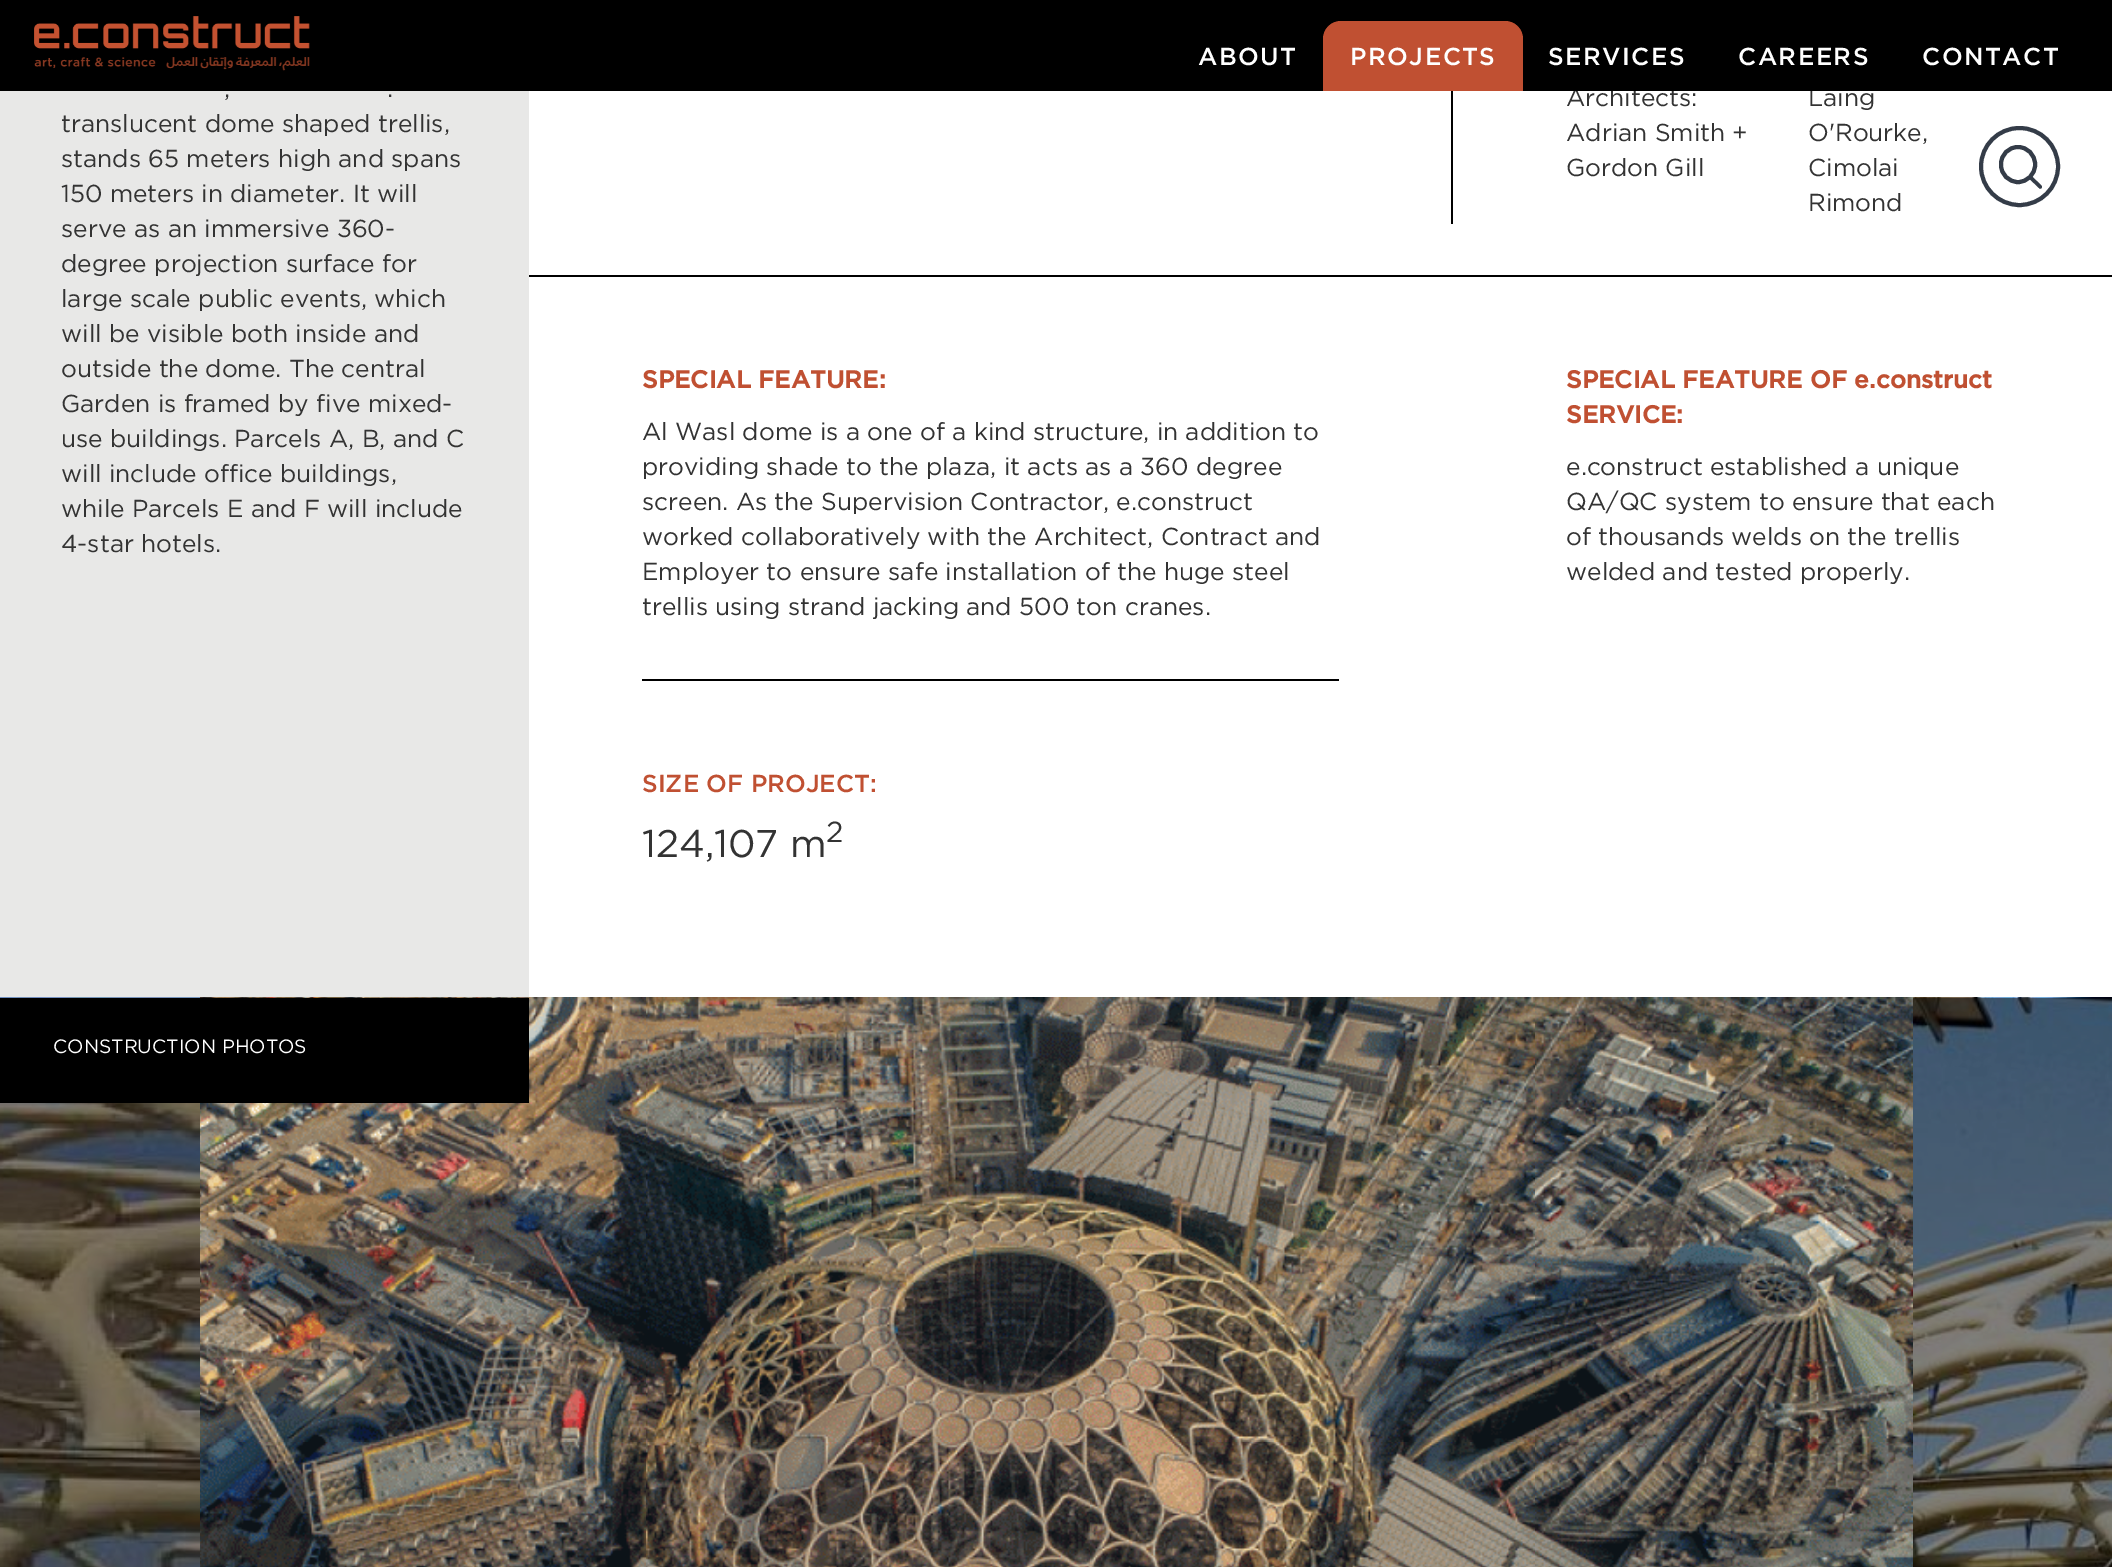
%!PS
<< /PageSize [2112 1567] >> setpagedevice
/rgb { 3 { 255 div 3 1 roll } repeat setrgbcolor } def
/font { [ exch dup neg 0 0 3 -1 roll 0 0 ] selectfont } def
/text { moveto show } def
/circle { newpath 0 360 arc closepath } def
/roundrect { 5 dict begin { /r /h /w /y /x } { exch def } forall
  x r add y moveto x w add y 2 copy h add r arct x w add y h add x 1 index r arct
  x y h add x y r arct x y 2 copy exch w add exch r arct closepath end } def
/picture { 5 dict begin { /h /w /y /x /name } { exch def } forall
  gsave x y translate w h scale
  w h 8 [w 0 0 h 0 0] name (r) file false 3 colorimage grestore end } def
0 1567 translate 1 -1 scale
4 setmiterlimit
255 255 255 rgb
0 0 2112 1567 rectfill
232 232 231 rgb
0 91 529 906 rectfill
0 0 0 rgb
1451 91 2 133 rectfill
529 275 1583 2 rectfill
642 679 697 2 rectfill
(img_02.rgb) 0 997 200 570 picture
(img_03.rgb) 200 997 1713 570 picture
(img_04.rgb) 1913 997 199 570 picture
0 998 529 105 rectfill
52 60 72 rgb
4 setlinewidth
2019.5 166.5 38.5 circle stroke
2001 147 34 35 17 roundrect stroke
2031.5 176 moveto 10 9.5 rlineto 0.5 1 0.5 2 0 2.5 rcurveto -0.5 1 -2 1 -2.5 0 rcurveto -10 -9.5 rlineto -0.5 -1 -0.5 -2 0 -2.5 rcurveto 0.5 -1 2 -1 2.5 0 rcurveto closepath fill
/Gotham-Regular 24.5 font
51 51 51 rgb
(,) 224 97 text
(.) 387 97 text
(translucent dome shaped trellis,) 61 132 text
(stands 65 meters high and spans) 61 167 text
(150 meters in diameter. It will) 61 202 text
(serve as an immersive 360-) 61 237 text
(degree projection surface for) 61 272 text
(large scale public events, which) 61 307 text
(will be visible both inside and) 61 342 text
(outside the dome. The central) 61 377 text
(Garden is framed by five mixed-) 61 412 text
(use buildings. Parcels A, B, and C) 61 447 text
(will include office buildings,) 61 482 text
(while Parcels E and F will include) 61 517 text
(4-star hotels.) 61 552 text
(Architects:) 1566 106 text
(Adrian Smith +) 1566 141 text
(Gordon Gill) 1566 176 text
(Laing) 1808 106 text
0 0 0 rgb
0 0 2112 91 rectfill
/Gotham-Medium 24.5 font
255 255 255 rgb
1922 65 moveto 1.5 0 (CONTACT) ashow
1738 65 moveto 1.5 0 (CAREERS) ashow
1548 65 moveto 1.5 0 (SERVICES) ashow
192 80 50 rgb
1341 21 moveto 164 0 rlineto 10 0 18 8 18 18 rcurveto 0 52 rlineto -200 0 rlineto 0 -52 rlineto 0 -10 8 -18 18 -18 rcurveto closepath fill
255 255 255 rgb
1350 65 moveto 1.5 0 (PROJECTS) ashow
1198 65 moveto 1.5 0 (ABOUT) ashow
(img_01.rgb) 34 16 276 55 picture
/Gotham-Regular 24.5 font
51 51 51 rgb
(O'Rourke,) 1808 141 text
(Cimolai) 1808 176 text
(Rimond) 1808 211 text
/Gotham-Bold 24.5 font
192 80 50 rgb
(SPECIAL FEATURE:) 642 388 text
/Gotham-Regular 24.5 font
51 51 51 rgb
(Al Wasl dome is a one of a kind structure, in addition to) 642 440 text
(providing shade to the plaza, it acts as a 360 degree) 642 475 text
(screen. As the Supervision Contractor, e.construct) 642 510 text
(worked collaboratively with the Architect, Contract and) 642 545 text
(Employer to ensure safe installation of the huge steel) 642 580 text
(trellis using strand jacking and 500 ton cranes.) 642 615 text
/Gotham-Bold 24.5 font
192 80 50 rgb
(SPECIAL FEATURE OF e.construct) 1566 388 text
(SERVICE:) 1566 423 text
/Gotham-Regular 24.5 font
51 51 51 rgb
(e.construct established a unique) 1566 475 text
(QA/QC system to ensure that each) 1566 510 text
(of thousands welds on the trellis) 1566 545 text
(welded and tested properly.) 1566 580 text
/Gotham-Medium 24.5 font
192 80 50 rgb
(SIZE OF PROJECT:) 642 792 text
/Gotham-Regular 38.5 font
51 51 51 rgb
(124,107 m) 642 857 text
/Gotham-Regular 29 font
(2) 826 842 text
/Gotham-Regular 19.25 font
255 255 255 rgb
(CONSTRUCTION PHOTOS) 53 1053 text
showpage
